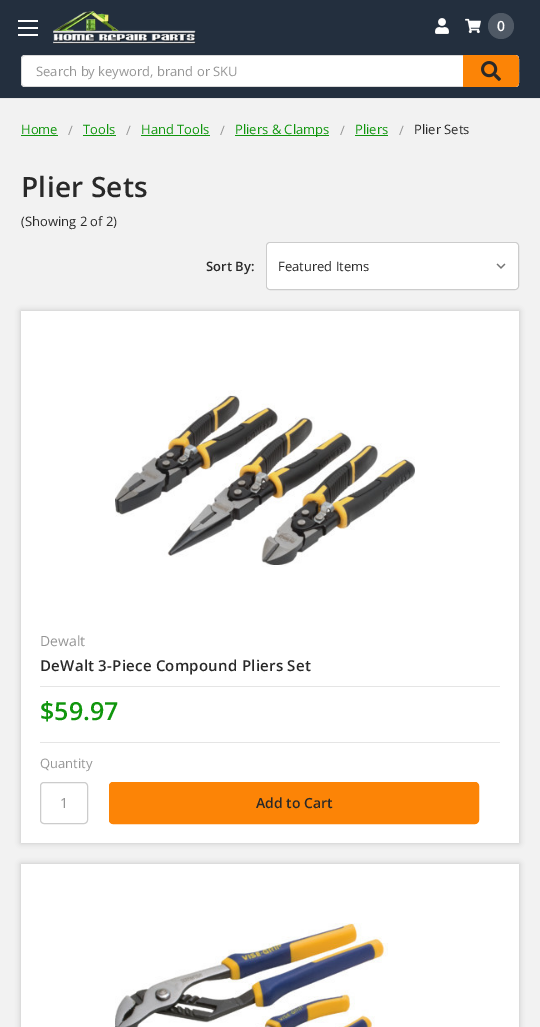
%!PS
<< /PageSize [540 1027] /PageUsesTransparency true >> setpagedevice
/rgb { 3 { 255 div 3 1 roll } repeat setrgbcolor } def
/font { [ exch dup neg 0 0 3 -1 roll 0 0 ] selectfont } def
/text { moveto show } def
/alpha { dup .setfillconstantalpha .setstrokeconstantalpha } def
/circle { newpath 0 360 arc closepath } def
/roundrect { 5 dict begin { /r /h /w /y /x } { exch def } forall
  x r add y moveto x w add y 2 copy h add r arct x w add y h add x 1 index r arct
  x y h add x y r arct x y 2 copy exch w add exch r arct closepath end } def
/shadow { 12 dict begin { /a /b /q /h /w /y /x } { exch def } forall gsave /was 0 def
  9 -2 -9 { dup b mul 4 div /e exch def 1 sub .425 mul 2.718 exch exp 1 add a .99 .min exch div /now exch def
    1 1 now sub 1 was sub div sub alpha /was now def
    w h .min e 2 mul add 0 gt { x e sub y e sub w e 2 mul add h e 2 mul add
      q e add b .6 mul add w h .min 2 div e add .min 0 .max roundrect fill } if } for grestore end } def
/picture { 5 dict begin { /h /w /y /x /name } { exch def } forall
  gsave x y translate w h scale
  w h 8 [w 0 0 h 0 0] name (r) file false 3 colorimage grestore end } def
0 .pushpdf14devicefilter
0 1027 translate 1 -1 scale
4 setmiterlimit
242 242 242 rgb
0 0 540 1027 rectfill
35 47 62 rgb
0 0 540 98 rectfill
229 229 229 rgb
0 98 540 1 rectfill
255 255 255 rgb
18 27 20 2 rectfill
18 20 20 2 rectfill
18 34 20 2 rectfill
(img_01.rgb) 53 11 143 33 picture
(img_02.rgb) 435 18 14 16 picture
(img_03.rgb) 465 18 16 16 picture
79 89 101 rgb
501 26 13 circle fill
255 255 255 rgb
21 55 498 32 4 roundrect fill
217 217 217 rgb
25 55 moveto -2 0 -4 2 -4 4 rcurveto 0 24 rlineto 0 2 2 4 4 4 rcurveto 490 0 rlineto 1 0 2 0 3 -1 rcurveto -493 0 rlineto -2 0 -3 -1 -3 -3 rcurveto 0 -24 rlineto 0 -2 1 -3 3 -3 rcurveto 493 0 rlineto -3 -1 rlineto closepath 518 56 moveto 0 30 rlineto 2 -3 1 -12 1 -15 rcurveto 0 -3 1 -12 -1 -15 rcurveto closepath eofill
252 132 6 rgb
463 55 moveto 52 0 rlineto 2 0 4 2 4 4 rcurveto 0 24 rlineto 0 2 -2 4 -4 4 rcurveto -52 0 rlineto closepath fill
(img_04.rgb) 481 61 20 20 picture
16 150 13 rgb
21 135 37 1 rectfill
83 135 33 1 rectfill
141 135 69 1 rectfill
235 135 94 1 rectfill
355 135 33 1 rectfill
255 255 255 rgb
266.5 242.5 252 47 3.5 roundrect gsave fill grestore
204 204 204 rgb
stroke
gsave
267 243 251 46 3 roundrect clip newpath
255 255 255 rgb
267 243 251 46 4 roundrect fill
grestore
(img_05.rgb) 496 263 10 6 picture
0 0 0 rgb
21 311 498 532 0 3 0.2 shadow
255 255 255 rgb
21 311 498 532 rectfill
(img_06.rgb) 115 390 300 177 picture
229 229 229 rgb
40 686 460 1 rectfill
40 742 460 1 rectfill
204 204 204 rgb
40.5 782.5 47 41 3.5 roundrect stroke
252 132 6 rgb
109.5 782.5 369 41 3.5 roundrect gsave fill grestore
stroke
0 0 0 rgb
21 864 498 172 0 3 0.2 shadow
255 255 255 rgb
21 864 498 163 rectfill
(img_07.rgb) 115 923 273 104 picture
/OpenSans-SemiBold 14 font
(0) 497 31 text
/OpenSans-Regular 13 font
149 149 149 rgb
(Search by keyword, brand or SKU) 36 76 text
16 150 13 rgb
(Home) 21 134 text
149 149 149 rgb
(/) 68 135 text
16 150 13 rgb
(Tools) 83 134 text
149 149 149 rgb
(/) 126 135 text
16 150 13 rgb
(Hand Tools) 141 134 text
149 149 149 rgb
(/) 220 135 text
16 150 13 rgb
(Pliers & Clamps) 235 134 text
149 149 149 rgb
(/) 340 135 text
16 150 13 rgb
(Pliers) 355 134 text
149 149 149 rgb
(/) 399 135 text
41 41 41 rgb
(Plier Sets) 414 134 text
/OpenSans-SemiBold 28 font
21 197 moveto 0.25 0 (Plier Sets) ashow
/OpenSans-Regular 13 font
(\(Showing 2 of 2\)) 21 226 text
/OpenSans-SemiBold 13 font
(Sort By:) 206 271 text
/OpenSans-Regular 13 font
(Featured Items) 278 271 text
/OpenSans-Regular 14 font
149 149 149 rgb
(Dewalt) 40 646 text
/OpenSans-SemiBold 15 font
41 41 41 rgb
40 671 moveto 0.25 0 (DeWalt 3-Piece Compound Pliers Set) ashow
/OpenSans-SemiBold 25 font
16 150 13 rgb
($59.97) 40 720 text
/OpenSans-Regular 13 font
149 149 149 rgb
(Quantity) 40 768 text
/OpenSans-Regular 14 font
(1) 60 808 text
/OpenSans-SemiBold 14 font
41 41 41 rgb
(Add to Cart) 256 808 text
.poppdf14devicefilter showpage
